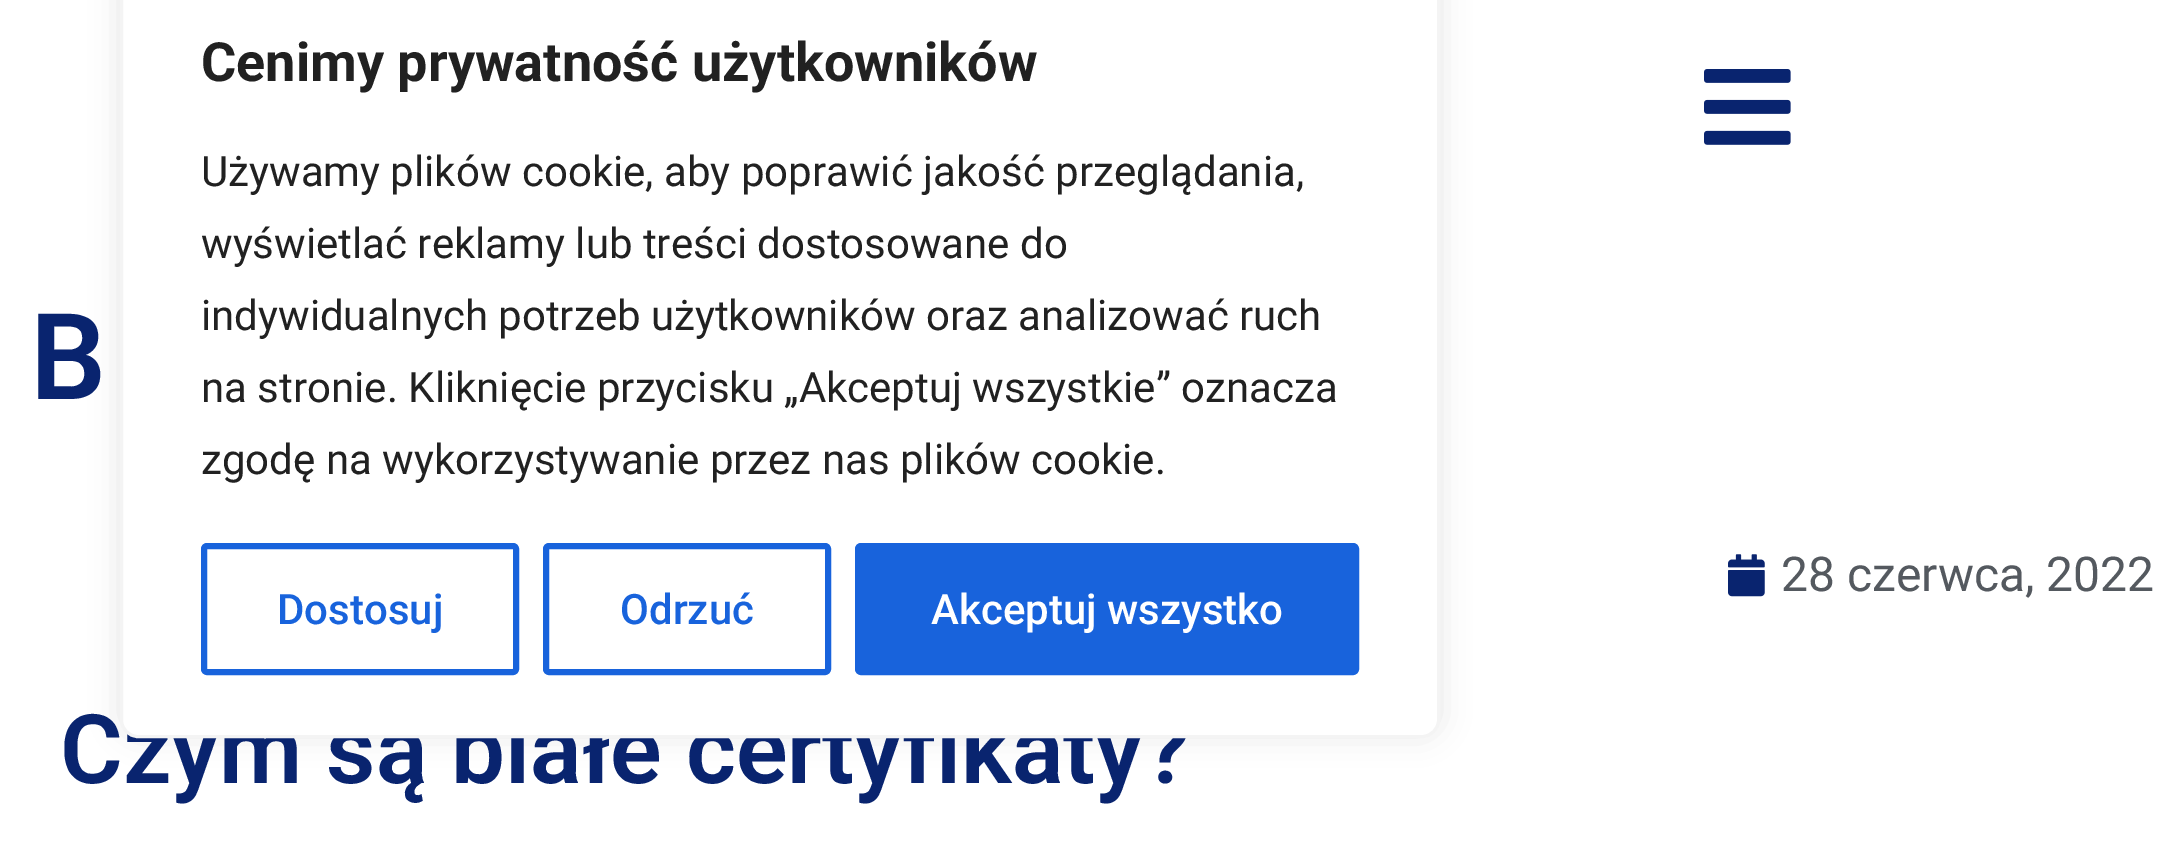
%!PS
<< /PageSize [2184 858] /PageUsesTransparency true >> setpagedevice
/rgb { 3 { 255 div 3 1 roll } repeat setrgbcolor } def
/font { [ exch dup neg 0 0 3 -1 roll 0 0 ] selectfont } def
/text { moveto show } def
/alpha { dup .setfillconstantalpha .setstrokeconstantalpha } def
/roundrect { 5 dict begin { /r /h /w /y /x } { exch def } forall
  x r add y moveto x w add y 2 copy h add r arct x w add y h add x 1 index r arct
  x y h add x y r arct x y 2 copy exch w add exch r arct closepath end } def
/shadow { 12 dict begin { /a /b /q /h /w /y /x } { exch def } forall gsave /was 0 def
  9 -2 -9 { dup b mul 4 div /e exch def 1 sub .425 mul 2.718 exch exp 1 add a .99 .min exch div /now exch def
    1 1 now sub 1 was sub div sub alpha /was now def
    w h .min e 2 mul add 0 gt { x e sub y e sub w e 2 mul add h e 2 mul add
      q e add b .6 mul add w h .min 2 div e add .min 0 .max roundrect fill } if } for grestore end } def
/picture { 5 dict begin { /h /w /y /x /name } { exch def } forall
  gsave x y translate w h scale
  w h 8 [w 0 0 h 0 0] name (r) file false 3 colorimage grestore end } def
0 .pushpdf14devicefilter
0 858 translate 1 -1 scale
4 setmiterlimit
255 255 255 rgb
0 0 2184 858 rectfill
172 171 171 rgb
120 -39 1320 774 18 15 0.3 shadow
(img_01.rgb) 1704 69 87 76 picture
(img_02.rgb) 1728 554 37 43 picture
/Roboto-SemiBold 120 font
9 36 111 rgb
(B) 30 399 text
/Roboto-Regular 48 font
84 89 95 rgb
(28 czerwca, 2022) 1781 591 text
/Roboto-SemiBold 96 font
9 36 111 rgb
(Czym są białe certyfikaty?) 60 783 text
255 255 255 rgb
121.5 -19.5 1317 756 16.5 roundrect gsave fill grestore
244 244 244 rgb
3 setlinewidth
stroke
24 99 220 rgb
858 546 498 126 3 roundrect gsave fill grestore
6 setlinewidth
stroke
/Roboto-Medium 42 font
255 255 255 rgb
(Akceptuj wszystko) 931 624 text
24 99 220 rgb
546 546 282 126 3 roundrect stroke
(Odrzuć) 620 624 text
204 546 312 126 3 roundrect stroke
(Dostosuj) 277 624 text
/Roboto-Regular 42 font
33 33 33 rgb
(zgodę na wykorzystywanie przez nas plików cookie.) 201 474 text
(na stronie. Kliknięcie przycisku „Akceptuj wszystkie” oznacza) 201 402 text
(indywidualnych potrzeb użytkowników oraz analizować ruch) 201 330 text
(wyświetlać reklamy lub treści dostosowane do) 201 258 text
(Używamy plików cookie, aby poprawić jakość przeglądania,) 201 186 text
/Roboto-Bold 54 font
(Cenimy prywatność użytkowników) 201 81 text
.poppdf14devicefilter showpage
